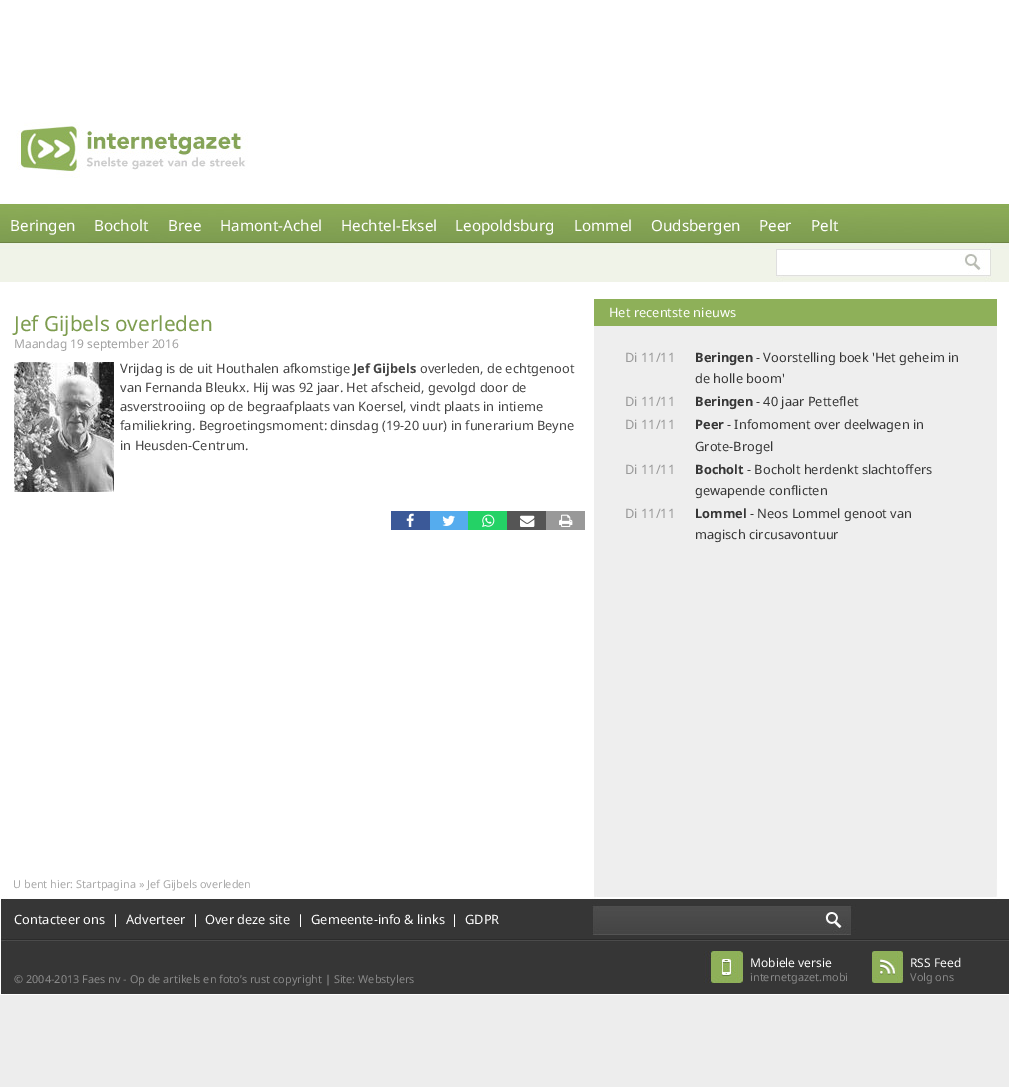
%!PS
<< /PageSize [1009 1087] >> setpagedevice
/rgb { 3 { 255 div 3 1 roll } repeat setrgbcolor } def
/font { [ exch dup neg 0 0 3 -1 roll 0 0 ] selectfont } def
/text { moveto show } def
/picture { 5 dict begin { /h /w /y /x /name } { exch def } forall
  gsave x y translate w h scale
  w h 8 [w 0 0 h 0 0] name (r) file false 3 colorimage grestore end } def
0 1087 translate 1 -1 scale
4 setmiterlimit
237 237 237 rgb
0 0 1009 1087 rectfill
255 255 255 rgb
0 0 1009 90 rectfill
(img_01.rgb) 0 282 1009 597 picture
(img_02.rgb) 0 90 1009 192 picture
(img_03.rgb) 14 362 100 130 picture
59 89 152 rgb
391 511 39 19 rectfill
(img_04.rgb) 406 513 8 14 picture
85 172 238 rgb
430 511 38 19 rectfill
(img_05.rgb) 442 515 13 11 picture
36 210 102 rgb
468 511 39 19 rectfill
(img_06.rgb) 482 514 13 13 picture
85 85 85 rgb
507 511 39 19 rectfill
(img_07.rgb) 520 515 15 12 picture
153 153 153 rgb
546 511 39 19 rectfill
(img_08.rgb) 559 514 14 13 picture
255 255 255 rgb
594 282 403 17 rectfill
142 176 89 rgb
594 299 403 27 rectfill
(img_09.rgb) 0 879 1009 116 picture
/NotoSans-Regular 15.25 font
255 255 255 rgb
(Beringen) 10 231 text
(Bocholt) 94 231 text
(Bree) 168 231 text
(Hamont-Achel) 220 231 text
(Hechtel-Eksel) 341 231 text
(Leopoldsburg) 455 231 text
(Lommel) 574 231 text
(Oudsbergen) 651 231 text
(Peer) 759 231 text
(Pelt) 811 231 text
/NotoSans-Regular 20.75 font
125 156 78 rgb
(Jef Gijbels overleden) 14 331 text
/NotoSans-Regular 12 font
161 161 161 rgb
(Maandag 19 september 2016) 14 348 text
/NotoSans-Regular 12.8 font
68 68 68 rgb
(Vrijdag is de uit Houthalen afkomstige) 120 373 text
/NotoSans-Bold 12.8 font
(Jef Gijbels) 353 373 text
/NotoSans-Regular 12.8 font
(overleden, de echtgenoot) 420 373 text
(van Fernanda Bleukx. Hij was 92 jaar. Het afscheid, gevolgd door de) 120 392 text
(asverstrooiing op de begraafplaats van Koersel, vindt plaats in intieme) 120 411 text
(familiekring. Begroetingsmoment: dinsdag \(19-20 uur\) in funerarium Beyne) 120 430 text
(in Heusden-Centrum.) 120 450 text
255 255 255 rgb
(Het recentste nieuws) 609 317 text
154 154 154 rgb
(Di 11/11) 625 362 text
/NotoSans-Bold 12.8 font
54 54 54 rgb
(Beringen) 695 362 text
/NotoSans-Regular 12.8 font
(- Voorstelling boek 'Het geheim in) 756 362 text
(de holle boom') 695 383 text
154 154 154 rgb
(Di 11/11) 625 406 text
/NotoSans-Bold 12.8 font
54 54 54 rgb
(Beringen) 695 406 text
/NotoSans-Regular 12.8 font
(- 40 jaar Petteflet) 756 406 text
154 154 154 rgb
(Di 11/11) 625 429 text
/NotoSans-Bold 12.8 font
54 54 54 rgb
(Peer) 695 429 text
/NotoSans-Regular 12.8 font
(- Infomoment over deelwagen in) 727 429 text
(Grote-Brogel) 695 451 text
154 154 154 rgb
(Di 11/11) 625 474 text
/NotoSans-Bold 12.8 font
54 54 54 rgb
(Bocholt) 695 474 text
/NotoSans-Regular 12.8 font
(- Bocholt herdenkt slachtoffers) 747 474 text
(gewapende conflicten) 695 495 text
154 154 154 rgb
(Di 11/11) 625 518 text
/NotoSans-Bold 12.8 font
54 54 54 rgb
(Lommel) 695 518 text
/NotoSans-Regular 12.8 font
(- Neos Lommel genoot van) 750 518 text
(magisch circusavontuur) 695 539 text
/NotoSans-Regular 10.9 font
170 170 170 rgb
(U bent hier: Startpagina » Jef Gijbels overleden) 13 888 text
/NotoSans-Regular 12.8 font
255 255 255 rgb
(Contacteer ons) 14 924 text
(|) 112 924 text
(Adverteer) 126 924 text
(|) 192 924 text
(Over deze site) 205 924 text
(|) 297 924 text
(Gemeente-info & links) 311 924 text
(|) 451 924 text
(GDPR) 465 924 text
/NotoSans-Regular 10.9 font
137 137 137 rgb
(© 2004-2013 Faes nv - Op de artikels en foto’s rust copyright | Site: Webstylers) 14 983 text
/NotoSans-Regular 12 font
255 255 255 rgb
(Mobiele versie) 750 967 text
/NotoSans-Regular 10.9 font
137 137 137 rgb
(internetgazet.mobi) 750 981 text
/NotoSans-Regular 12 font
255 255 255 rgb
(RSS Feed) 910 967 text
/NotoSans-Regular 10.9 font
137 137 137 rgb
(Volg ons) 910 981 text
showpage
